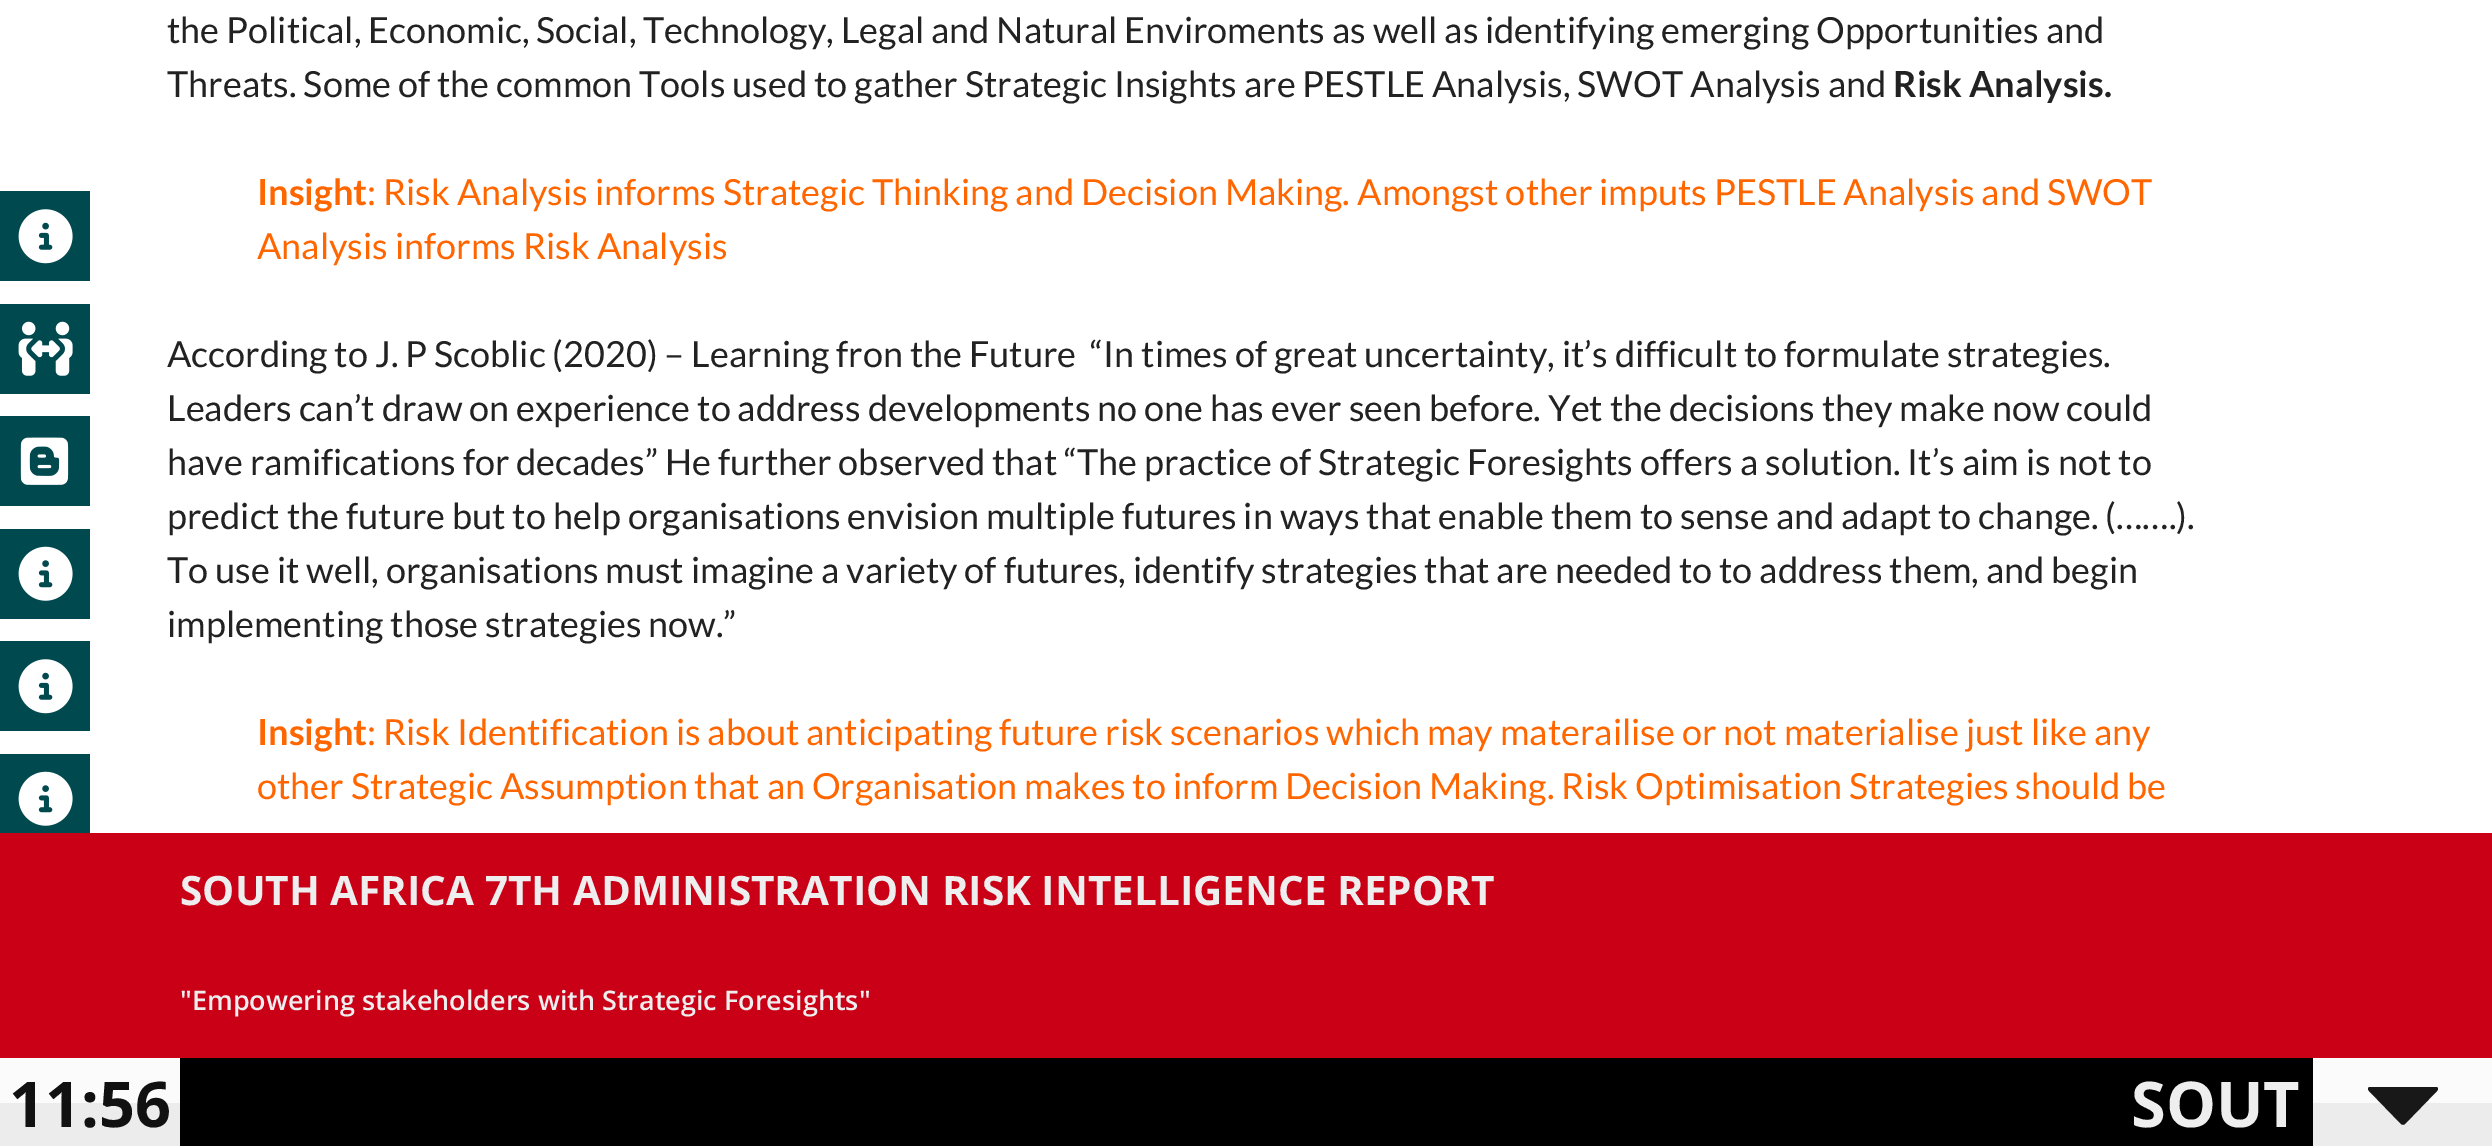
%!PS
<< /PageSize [2492 1146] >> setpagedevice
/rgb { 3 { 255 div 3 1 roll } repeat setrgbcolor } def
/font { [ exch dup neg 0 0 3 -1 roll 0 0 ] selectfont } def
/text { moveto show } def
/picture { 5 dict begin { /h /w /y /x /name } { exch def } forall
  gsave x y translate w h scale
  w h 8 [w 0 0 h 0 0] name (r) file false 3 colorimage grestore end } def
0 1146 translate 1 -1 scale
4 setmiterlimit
255 255 255 rgb
0 0 2492 1146 rectfill
0 73 79 rgb
0 191 90 90 rectfill
(img_01.rgb) 18 209 55 55 picture
0 304 90 90 rectfill
(img_02.rgb) 18 321 55 55 picture
0 416 90 90 rectfill
(img_03.rgb) 20 437 49 48 picture
0 529 90 90 rectfill
(img_04.rgb) 18 546 55 55 picture
0 641 90 90 rectfill
(img_01.rgb) 18 659 55 55 picture
0 754 90 79 rectfill
(img_04.rgb) 18 771 55 55 picture
201 0 22 rgb
0 833 2492 225 rectfill
251 251 251 rgb
0 1058 180 45 rectfill
236 236 236 rgb
0 1103 180 43 rectfill
0 0 0 rgb
180 1058 2133 88 rectfill
251 251 251 rgb
2313 1058 179 45 rectfill
236 236 236 rgb
2313 1103 179 43 rectfill
24 24 24 rgb
2405 1124 moveto 32 -33 rlineto 2 -2 1 -4 -1 -4 rcurveto -66 0 rlineto -2 0 -3 2 -1 4 rcurveto 32 33 rlineto 1 1 3 1 4 0 rcurveto closepath fill
/Lato-Regular 36 font
34 34 34 rgb
(the Political, Economic, Social, Technology, Legal and Natural Enviroments as well as identifying emerging Opportunities and) 167 43 text
(Threats. Some of the common Tools used to gather Strategic Insights are PESTLE Analysis, SWOT Analysis and) 167 97 text
/Lato-Bold 36 font
(Risk Analysis.) 1893 97 text
255 102 0 rgb
(Insight) 257 205 text
/Lato-Regular 36 font
(: Risk Analysis informs Strategic Thinking and Decision Making. Amongst other imputs PESTLE Analysis and SWOT) 367 205 text
(Analysis informs Risk Analysis) 257 259 text
34 34 34 rgb
(According to J. P Scoblic \(2020\) – Learning fron the Future  “In times of great uncertainty, it’s difficult to formulate strategies.) 167 367 text
(Leaders can’t draw on experience to address developments no one has ever seen before. Yet the decisions they make now could) 167 421 text
(have ramifications for decades” He further observed that “The practice of Strategic Foresights offers a solution. It’s aim is not to) 167 475 text
(predict the future but to help organisations envision multiple futures in ways that enable them to sense and adapt to change. \(…….\).) 167 529 text
(To use it well, organisations must imagine a variety of futures, identify strategies that are needed to to address them, and begin) 167 583 text
(implementing those strategies now.”) 167 637 text
/Lato-Bold 36 font
255 102 0 rgb
(Insight) 257 745 text
/Lato-Regular 36 font
(: Risk Identification is about anticipating future risk scenarios which may materailise or not materialise just like any) 367 745 text
(other Strategic Assumption that an Organisation makes to inform Decision Making. Risk Optimisation Strategies should be) 257 799 text
/OpenSans-Bold 40.5 font
238 238 238 rgb
(SOUTH AFRICA 7TH ADMINISTRATION RISK INTELLIGENCE REPORT) 180 905 text
/OpenSans-SemiBold 27 font
("Empowering stakeholders with Strategic Foresights") 180 1010 text
/OpenSans-Bold 63 font
17 17 17 rgb
(11:56) 9 1127 text
238 238 238 rgb
(SOUT) 2131 1127 text
showpage
